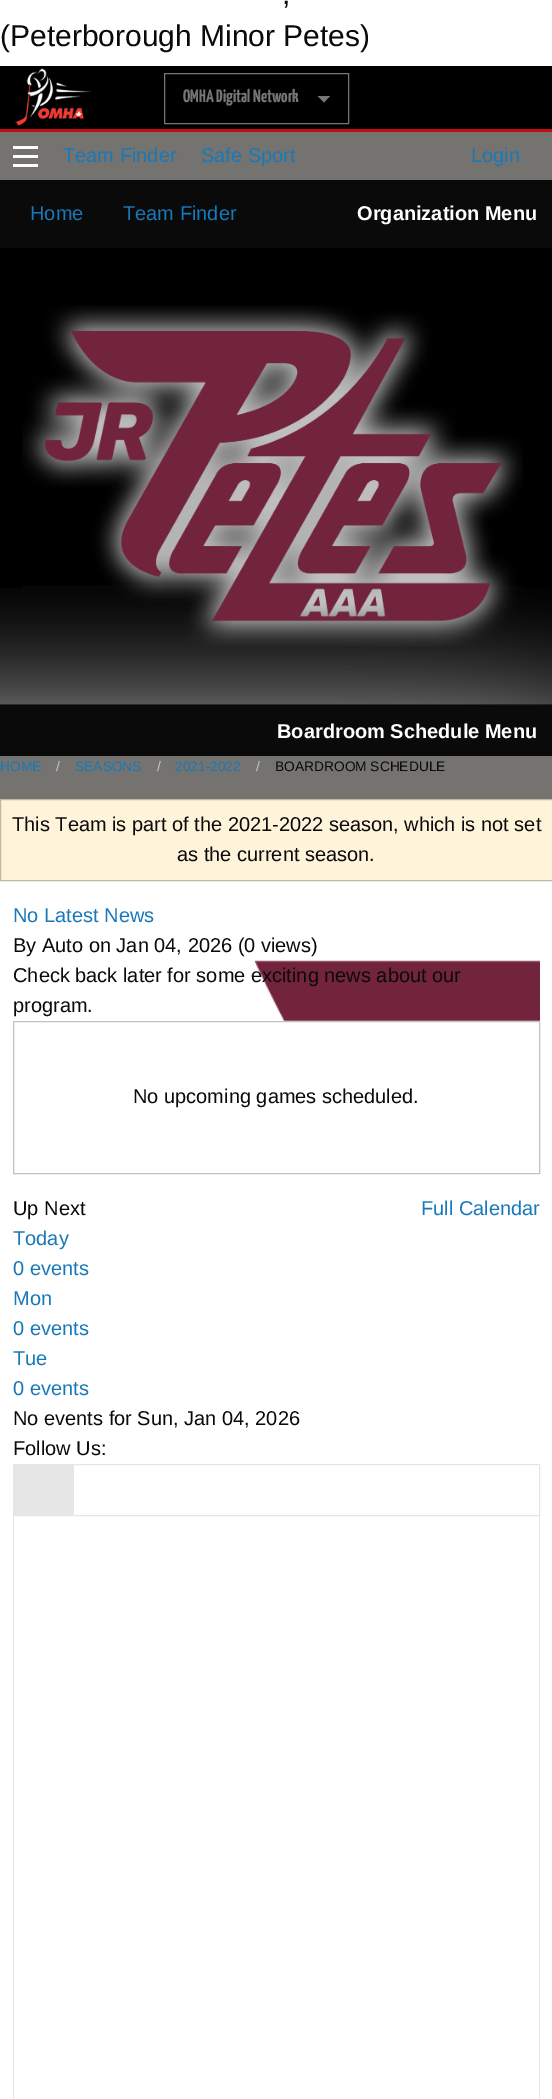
%!PS
<< /PageSize [552 2099] >> setpagedevice
/rgb { 3 { 255 div 3 1 roll } repeat setrgbcolor } def
/font { [ exch dup neg 0 0 3 -1 roll 0 0 ] selectfont } def
/text { moveto show } def
/picture { 5 dict begin { /h /w /y /x /name } { exch def } forall
  gsave x y translate w h scale
  w h 8 [w 0 0 h 0 0] name (r) file false 3 colorimage grestore end } def
0 2099 translate 1 -1 scale
4 setmiterlimit
255 255 255 rgb
0 0 552 2099 rectfill
0 0 0 rgb
0 66 552 63 rectfill
198 12 12 rgb
0 129 552 3 rectfill
(img_01.rgb) 15 68 78 58 picture
118 118 118 rgb
164.5 73.5 184 50 rectstroke
317.5 96 moveto 12.5 0 rlineto -6 6.5 rlineto closepath fill
117 115 112 rgb
0 132 552 667 rectfill
254 254 254 rgb
13 164 25 3 rectfill
13 155 25 3 rectfill
13 146 25 3 rectfill
10 10 10 rgb
0 180 552 68 rectfill
0 0 0 rgb
0 248 552 457 rectfill
(img_02.rgb) 0 588 552 117 picture
(img_03.rgb) 22 305 501 341 picture
10 10 10 rgb
0 705 552 51 rectfill
255 243 217 rgb
0.5 799.5 moveto 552 0 rlineto 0 81 rlineto -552 0 rlineto closepath gsave fill grestore
194 185 165 rgb
stroke
(img_04.rgb) 254 960 286 61 picture
194 194 194 rgb
13.5 1021.5 526 152 rectstroke
230 230 230 rgb
13.5 1464.5 526 51 rectstroke
14 1465 60 50 rectfill
539 1516 1 583 rectfill
13 1516 1 583 rectfill
/LiberationSans-Regular 30 font
10 10 10 rgb
(,) 282 4 text
(\(Peterborough Minor Petes\)) 0 46 text
/YanoneKaffeesatz-ExtraLight 18 font
118 118 118 rgb
(OMHA Digital Network) 183 102 text
/LiberationSans-Regular 20 font
23 121 186 rgb
(Team Finder) 63 162 text
(Safe Sport) 201 162 text
(Login) 471 162 text
(Home) 30 220 text
(Team Finder) 123 220 text
/LiberationSans-Bold 20 font
254 254 254 rgb
(Organization Menu) 357 220 text
(Boardroom Schedule Menu) 277 738 text
/LiberationSans-Regular 13.75 font
23 121 186 rgb
(HOME) 0 771 text
202 202 202 rgb
(/) 56 771 text
23 121 186 rgb
(SEASONS) 75 771 text
202 202 202 rgb
(/) 157 771 text
23 121 186 rgb
(2021-2022) 175 771 text
202 202 202 rgb
(/) 256 771 text
10 10 10 rgb
(BOARDROOM SCHEDULE) 275 771 text
/LiberationSans-Regular 20 font
(This Team is part of the 2021-2022 season, which is not set) 12 831 text
(as the current season.) 177 861 text
23 121 186 rgb
(No Latest News) 13 922 text
10 10 10 rgb
(By Auto on Jan 04, 2026 \(0 views\)) 13 952 text
(Check back later for some exciting news about our) 13 982 text
(program.) 13 1012 text
(No upcoming games scheduled.) 133 1103 text
(Up Next) 13 1215 text
23 121 186 rgb
(Full Calendar) 421 1215 text
(Today) 13 1245 text
(0 events) 13 1275 text
(Mon) 13 1305 text
(0 events) 13 1335 text
(Tue) 13 1365 text
(0 events) 13 1395 text
10 10 10 rgb
(No events for Sun, Jan 04, 2026) 13 1425 text
(Follow Us:) 13 1455 text
showpage
